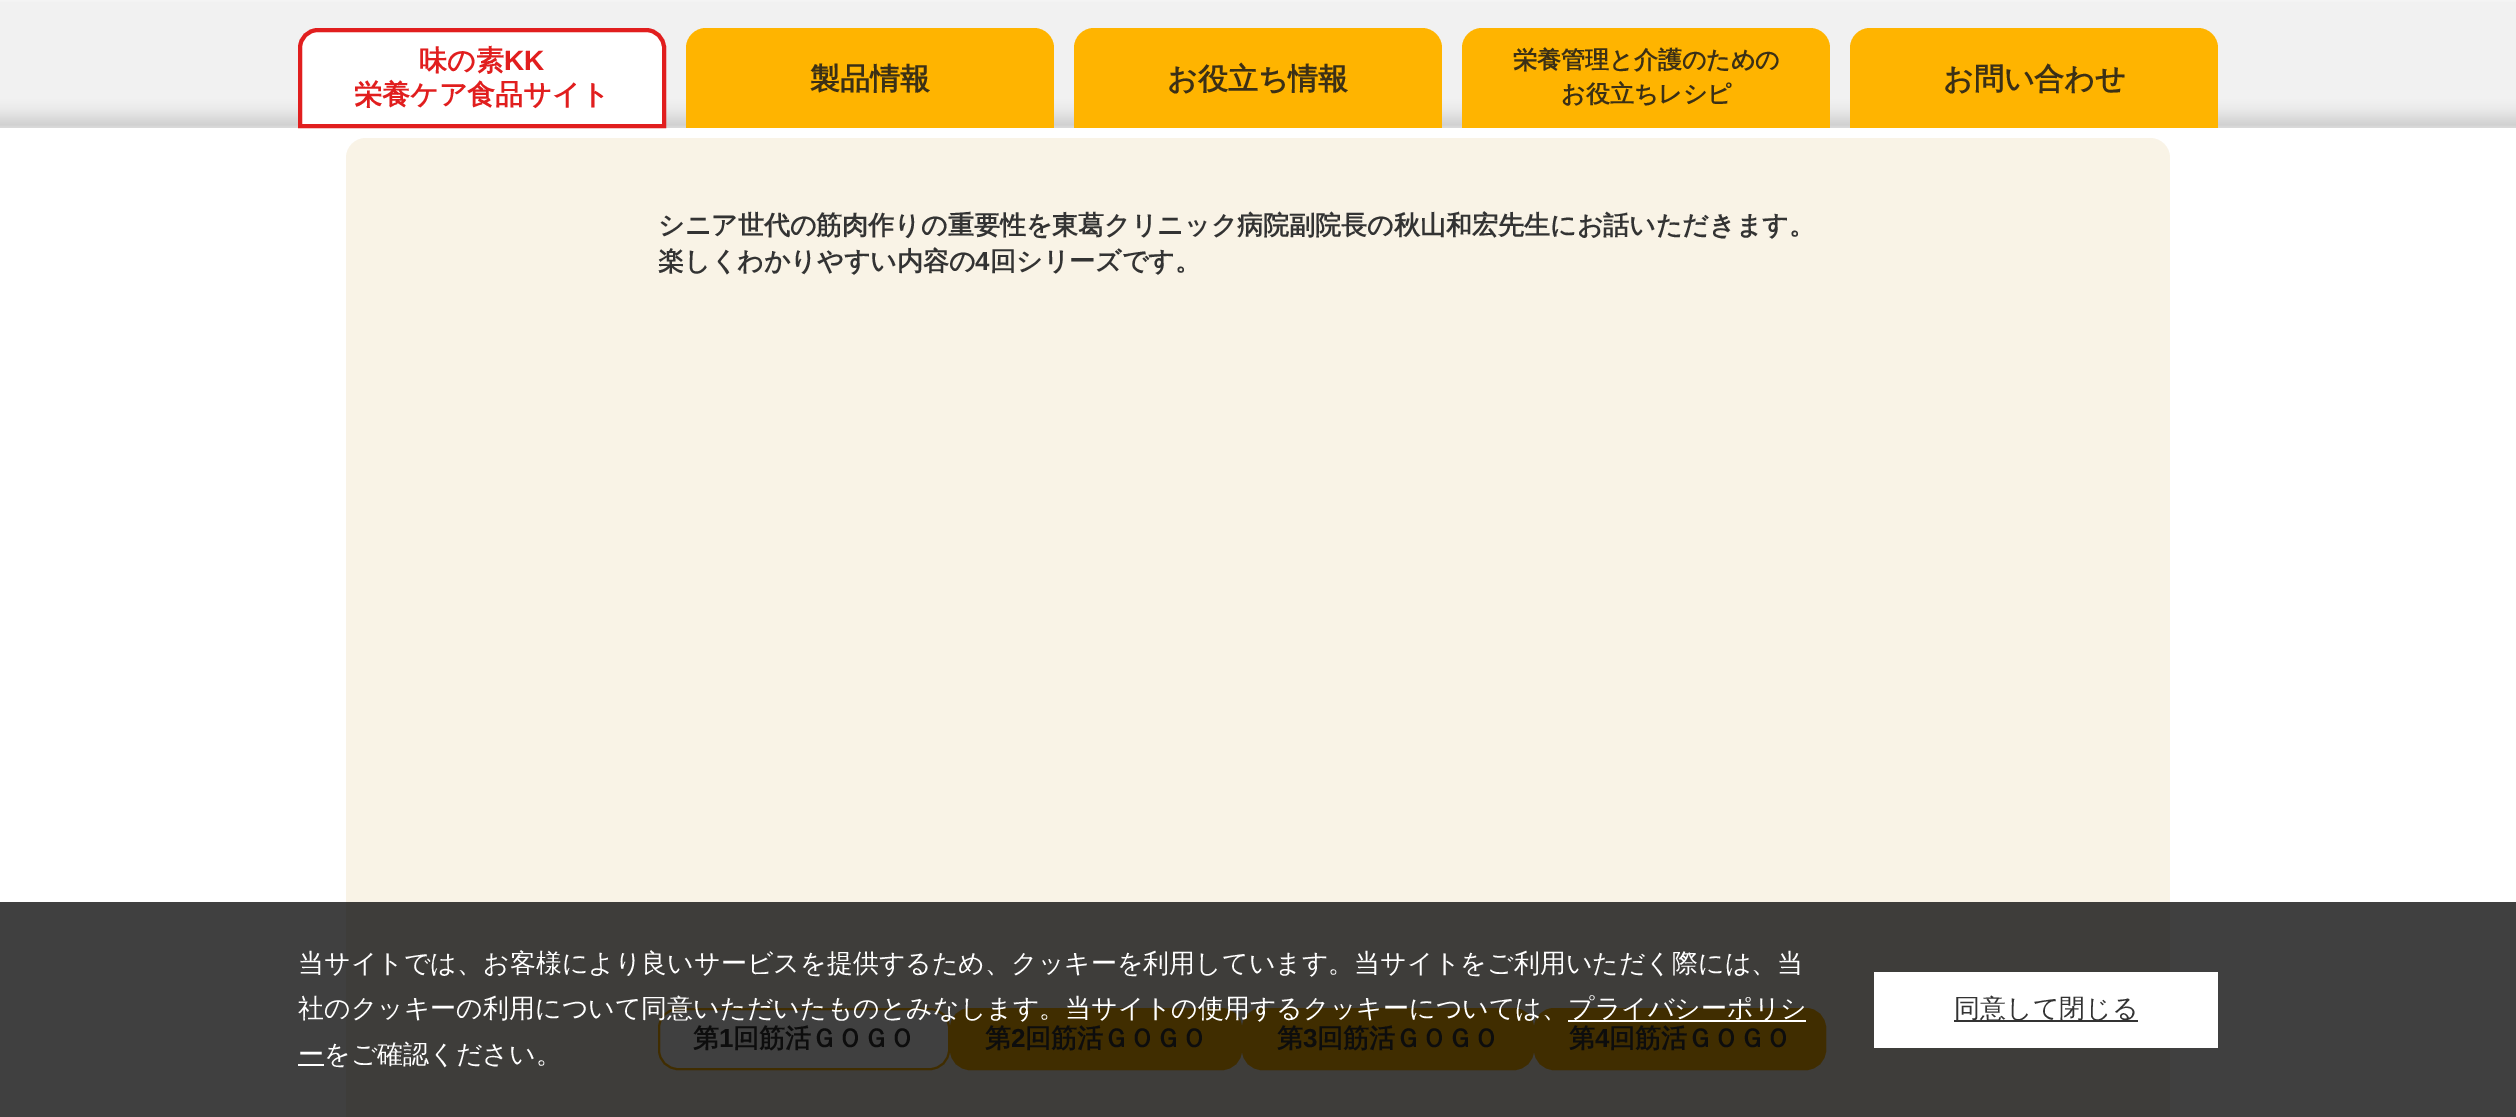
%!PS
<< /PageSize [2516 1117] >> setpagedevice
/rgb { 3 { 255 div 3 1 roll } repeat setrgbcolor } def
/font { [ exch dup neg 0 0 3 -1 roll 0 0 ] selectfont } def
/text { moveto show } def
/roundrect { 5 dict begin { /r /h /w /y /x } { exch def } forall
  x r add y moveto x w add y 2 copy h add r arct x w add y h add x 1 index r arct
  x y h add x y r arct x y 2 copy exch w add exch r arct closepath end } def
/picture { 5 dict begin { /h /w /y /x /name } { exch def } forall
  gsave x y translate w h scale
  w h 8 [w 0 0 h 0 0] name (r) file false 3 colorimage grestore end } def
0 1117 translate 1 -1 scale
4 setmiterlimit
255 255 255 rgb
0 0 2516 1117 rectfill
64 64 64 rgb
0 902 2516 215 rectfill
(img_01.rgb) 0 0 2516 128 picture
255 255 255 rgb
318 30 moveto 328 0 rlineto 10 0 18 8 18 18 rcurveto 0 78 rlineto -364 0 rlineto 0 -78 rlineto 0 -10 8 -18 18 -18 rcurveto closepath gsave fill grestore
225 30 30 rgb
4 setlinewidth
stroke
255 180 0 rgb
706 28 moveto 328 0 rlineto 11 0 20 9 20 20 rcurveto 0 80 rlineto -368 0 rlineto 0 -80 rlineto 0 -11 9 -20 20 -20 rcurveto closepath fill
1094 28 moveto 328 0 rlineto 11 0 20 9 20 20 rcurveto 0 80 rlineto -368 0 rlineto 0 -80 rlineto 0 -11 9 -20 20 -20 rcurveto closepath fill
1482 28 moveto 328 0 rlineto 11 0 20 9 20 20 rcurveto 0 80 rlineto -368 0 rlineto 0 -80 rlineto 0 -11 9 -20 20 -20 rcurveto closepath fill
1870 28 moveto 328 0 rlineto 11 0 20 9 20 20 rcurveto 0 80 rlineto -368 0 rlineto 0 -80 rlineto 0 -11 9 -20 20 -20 rcurveto closepath fill
249 243 230 rgb
346 138 1824 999 20 roundrect fill
62 61 58 rgb
346 902 1824 215 rectfill
64 64 64 rgb
659 1009 290 60 19 roundrect gsave fill grestore
64 45 0 rgb
2 setlinewidth
stroke
951 1009 290 60 19 roundrect gsave fill grestore
stroke
1243 1009 290 60 19 roundrect gsave fill grestore
stroke
1535 1009 290 60 19 roundrect gsave fill grestore
stroke
255 255 255 rgb
1568 1020 238 2 rectfill
298 1064 26 2 rectfill
1874 972 344 76 rectfill
51 51 51 rgb
1954 1020 184 2 rectfill
/WenQuanYiZenHei-Bold 28 font
225 30 30 rgb
(味の素) 419 70 text
/LiberationSans-Bold 28 font
(KK) 504 70 text
/WenQuanYiZenHei-Bold 28 font
(栄養ケア食品サイト) 354 104 text
/WenQuanYiZenHei-Bold 30 font
59 48 22 rgb
(製品情報) 810 89 text
(お役立ち情報) 1167 89 text
/WenQuanYiZenHei-Bold 24 font
(栄養管理と介護のための) 1513 68 text
(お役立ちレシピ) 1561 102 text
/WenQuanYiZenHei-Bold 30 font
(お問い合わせ) 1943 89 text
/WenQuanYiZenHei-Bold 26 font
51 51 51 rgb
(シニア世代の筋肉作りの重要性を東葛クリニック病院副院長の秋山和宏先生にお話いただきます。) 658 234 text
(楽しくわかりやすい内容の) 658 270 text
/LiberationSans-Bold 26 font
(4) 975 270 text
/WenQuanYiZenHei-Bold 26 font
(回シリーズです。) 990 270 text
13 13 13 rgb
(第) 693 1047 text
/LiberationSans-Bold 26 font
(1) 719 1047 text
/WenQuanYiZenHei-Bold 26 font
(回筋活ＧＯＧＯ) 733 1047 text
(第) 985 1047 text
/LiberationSans-Bold 26 font
(2) 1011 1047 text
/WenQuanYiZenHei-Bold 26 font
(回筋活ＧＯＧＯ) 1025 1047 text
(第) 1277 1047 text
/LiberationSans-Bold 26 font
(3) 1303 1047 text
/WenQuanYiZenHei-Bold 26 font
(回筋活ＧＯＧＯ) 1317 1047 text
(第) 1569 1047 text
/LiberationSans-Bold 26 font
(4) 1595 1047 text
/WenQuanYiZenHei-Bold 26 font
(回筋活ＧＯＧＯ) 1609 1047 text
/WenQuanYiZenHei-Medium 26 font
255 255 255 rgb
(当サイトでは、お客様により良いサービスを提供するため、クッキーを利用しています。当サイトをご利用いただく際には、当) 298 972 text
(社のクッキーの利用について同意いただいたものとみなします。当サイトの使用するクッキーについては、) 298 1017 text
(プライバシーポリシ) 1568 1017 text
(ーをご確認ください。) 298 1063 text
51 51 51 rgb
(同意して閉じる) 1954 1017 text
showpage
